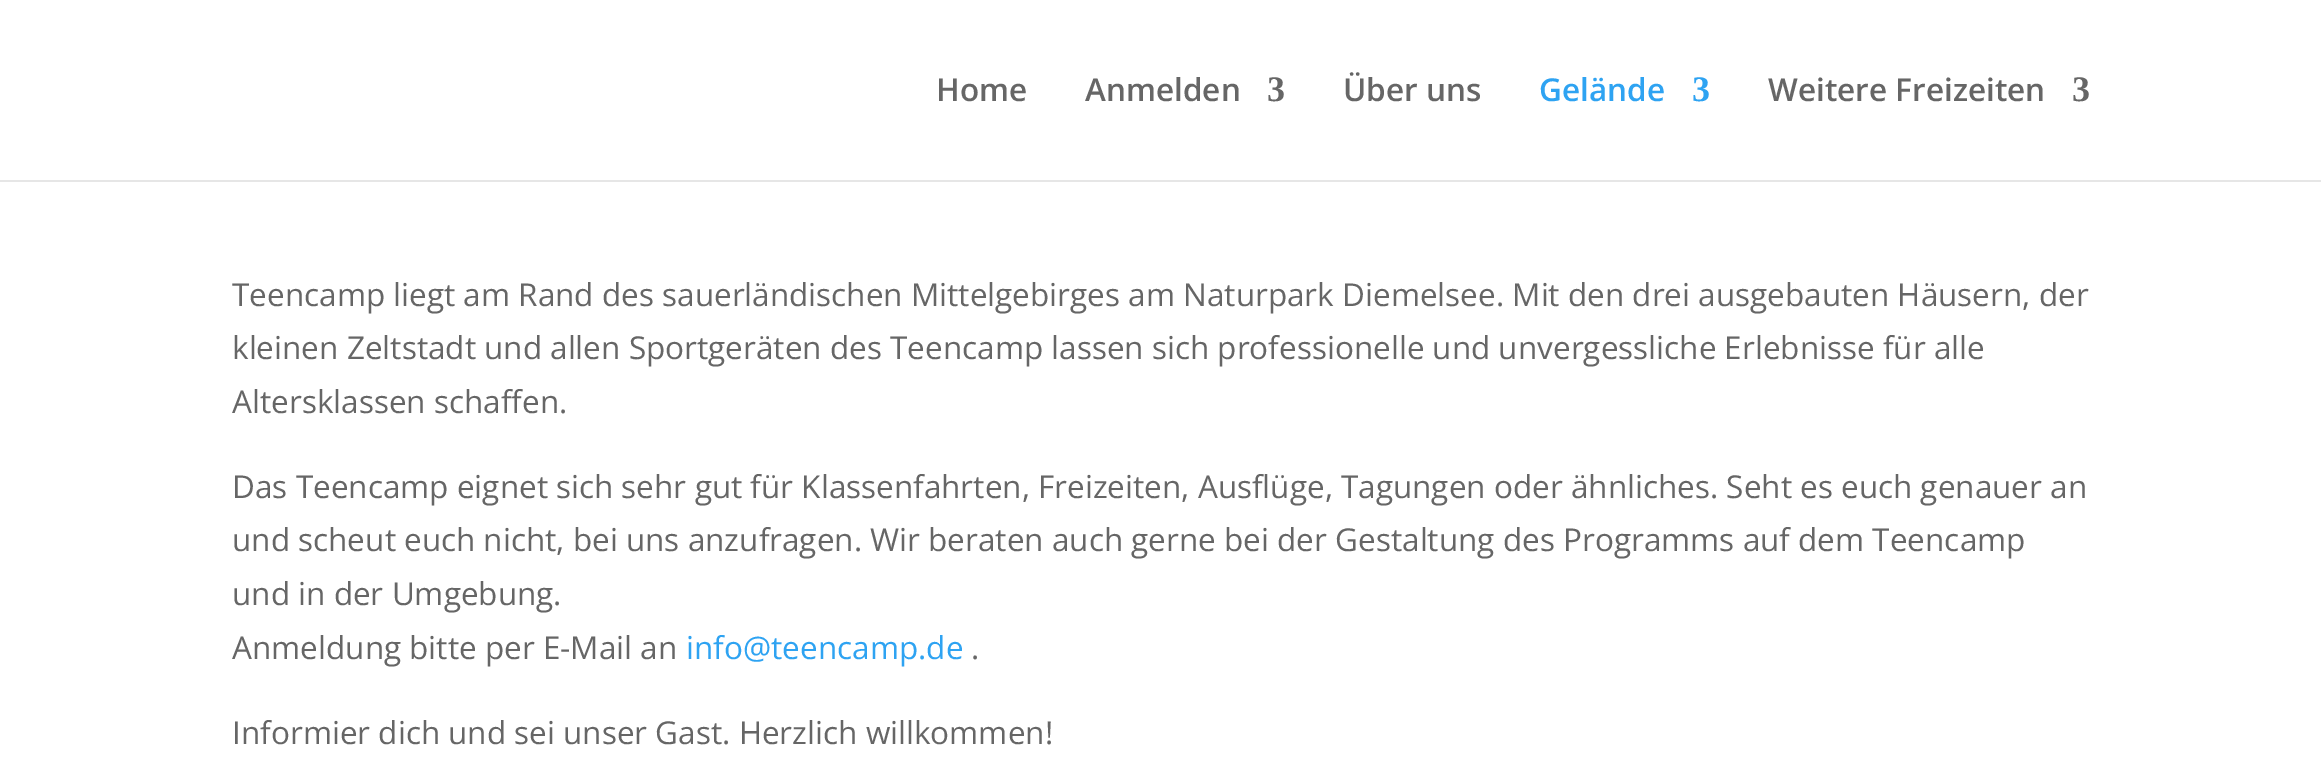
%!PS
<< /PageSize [2321 775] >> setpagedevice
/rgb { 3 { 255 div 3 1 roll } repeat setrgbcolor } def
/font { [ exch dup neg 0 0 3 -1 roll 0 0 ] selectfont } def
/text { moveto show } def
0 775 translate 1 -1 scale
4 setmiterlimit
255 255 255 rgb
0 0 2321 775 rectfill
230 230 230 rgb
0 180 2321 2 rectfill
/OpenSans-SemiBold 31.5 font
102 102 102 rgb
(Home) 936 101 text
(Anmelden) 1085 101 text
/LiberationSerif-Bold 36 font
(3) 1267 101 text
/OpenSans-SemiBold 31.5 font
(Über uns) 1343 101 text
46 163 242 rgb
(Gelände) 1539 101 text
/LiberationSerif-Bold 36 font
(3) 1692 101 text
/OpenSans-SemiBold 31.5 font
102 102 102 rgb
(Weitere Freizeiten) 1768 101 text
/LiberationSerif-Bold 36 font
(3) 2072 101 text
/OpenSans-Regular 31.5 font
(Teencamp liegt am Rand des sauerländischen Mittelgebirges am Naturpark Diemelsee. Mit den drei ausgebauten Häusern, der) 232 306 text
(kleinen Zeltstadt und allen Sportgeräten des Teencamp lassen sich professionelle und unvergessliche Erlebnisse für alle) 232 359 text
(Altersklassen schaffen.) 232 413 text
(Das Teencamp eignet sich sehr gut für Klassenfahrten, Freizeiten, Ausflüge, Tagungen oder ähnliches. Seht es euch genauer an) 232 498 text
(und scheut euch nicht, bei uns anzufragen. Wir beraten auch gerne bei der Gestaltung des Programms auf dem Teencamp) 232 551 text
(und in der Umgebung.) 232 605 text
(Anmeldung bitte per E-Mail an) 232 659 text
46 163 242 rgb
(info@teencamp.de) 686 659 text
102 102 102 rgb
(.) 971 659 text
(Informier dich und sei unser Gast. Herzlich willkommen!) 232 744 text
showpage
